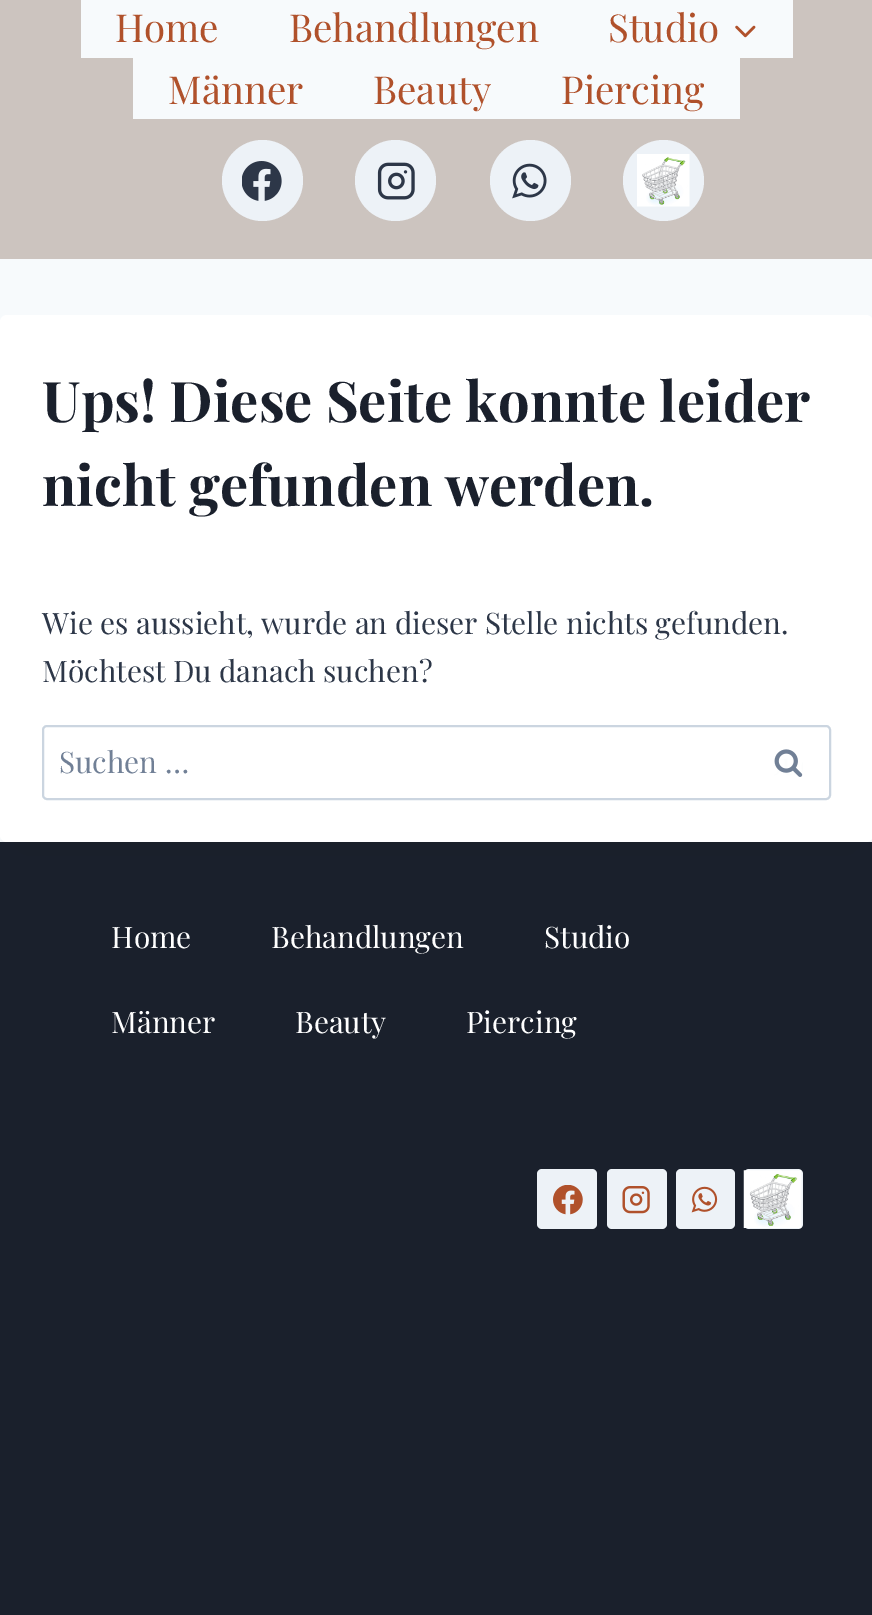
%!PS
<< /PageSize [872 1615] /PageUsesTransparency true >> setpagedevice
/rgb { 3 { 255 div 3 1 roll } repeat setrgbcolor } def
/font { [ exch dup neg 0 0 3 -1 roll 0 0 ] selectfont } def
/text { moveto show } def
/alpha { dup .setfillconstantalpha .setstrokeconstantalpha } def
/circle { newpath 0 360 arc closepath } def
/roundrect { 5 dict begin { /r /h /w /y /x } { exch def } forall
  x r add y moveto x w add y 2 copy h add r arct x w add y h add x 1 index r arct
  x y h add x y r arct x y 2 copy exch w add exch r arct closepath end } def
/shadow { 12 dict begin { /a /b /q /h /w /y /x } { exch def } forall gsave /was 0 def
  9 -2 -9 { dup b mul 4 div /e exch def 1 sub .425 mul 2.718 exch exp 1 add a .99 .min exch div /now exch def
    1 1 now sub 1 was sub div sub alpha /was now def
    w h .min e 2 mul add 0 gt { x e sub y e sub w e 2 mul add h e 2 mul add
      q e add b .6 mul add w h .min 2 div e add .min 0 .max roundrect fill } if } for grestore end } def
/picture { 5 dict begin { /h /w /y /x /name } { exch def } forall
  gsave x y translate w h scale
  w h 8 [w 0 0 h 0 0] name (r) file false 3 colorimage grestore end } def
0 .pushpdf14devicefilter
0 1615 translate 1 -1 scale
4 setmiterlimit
247 250 252 rgb
0 0 872 1615 rectfill
204 196 191 rgb
0 0 872 259 rectfill
247 250 252 rgb
81 0 712 58 rectfill
(img_01.rgb) 735 25 21 13 picture
133 58 607 61 rectfill
237 242 247 rgb
262.5 180.5 40.5 circle fill
(img_02.rgb) 242 161 40 40 picture
395.5 180.5 40.5 circle fill
(img_03.rgb) 377 162 38 38 picture
530.5 180.5 40.5 circle fill
(img_04.rgb) 512 163 35 36 picture
663.5 180.5 40.5 circle fill
(img_05.rgb) 637 154 53 53 picture
26 32 44 rgb
0 842 872 773 rectfill
0 0 0 rgb
18 359 838 492 0 22 0.05 shadow
255 255 255 rgb
0 315 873 527 7 roundrect fill
203 213 224 rgb
2 setlinewidth
43 726 787 73 4 roundrect stroke
(img_06.rgb) 774 749 29 28 picture
237 242 247 rgb
537 1169 60 60 5 roundrect fill
(img_07.rgb) 553 1185 30 30 picture
607 1169 60 60 5 roundrect fill
(img_08.rgb) 622 1186 28 28 picture
676 1169 59 60 5 roundrect fill
(img_09.rgb) 691 1186 27 27 picture
744 1169 59 60 5 roundrect fill
(img_10.rgb) 743 1170 59 58 picture
/PlayfairDisplay-Regular 38.5 font
176 81 43 rgb
(Home) 115 42 text
(Behandlungen) 289 42 text
(Studio) 608 42 text
(Männer) 168 104 text
(Beauty) 373 104 text
(Piercing) 561 104 text
/PlayfairDisplay-Bold 56 font
26 32 44 rgb
(Ups! Diese Seite konnte leider) 42 422 text
(nicht gefunden werden.) 42 506 text
/PlayfairDisplay-Regular 29.75 font
45 55 72 rgb
(Wie es aussieht, wurde an dieser Stelle nichts gefunden.) 42 634 text
(Möchtest Du danach suchen?) 42 682 text
113 128 150 rgb
(Suchen …) 59 773 text
255 255 255 rgb
(Home) 111 948 text
(Behandlungen) 271 948 text
(Studio) 544 948 text
(Männer) 111 1033 text
(Beauty) 295 1033 text
(Piercing) 466 1033 text
.poppdf14devicefilter showpage
